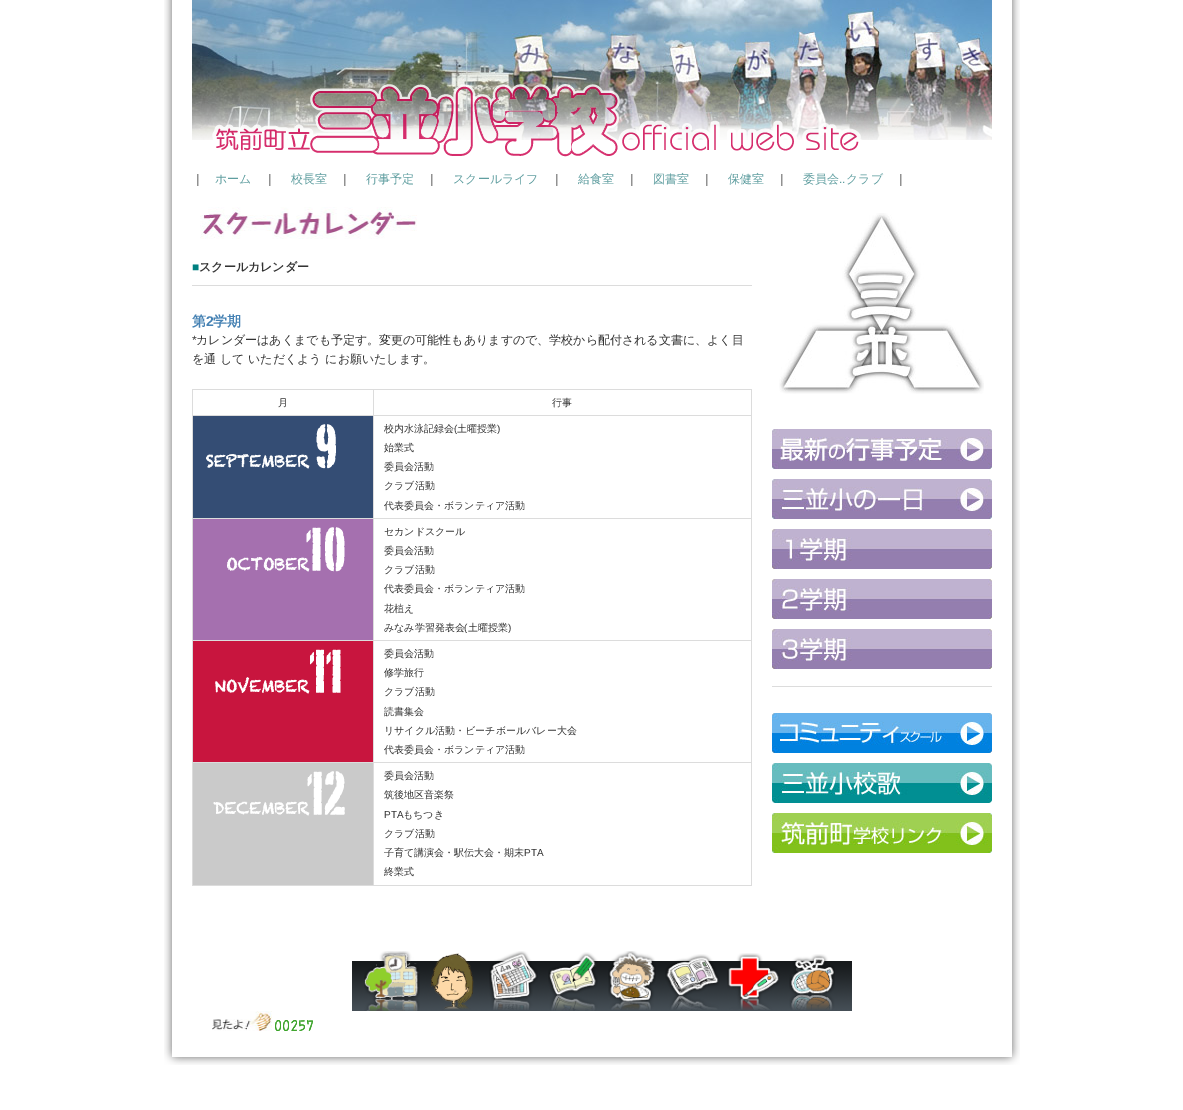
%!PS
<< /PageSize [1183 1110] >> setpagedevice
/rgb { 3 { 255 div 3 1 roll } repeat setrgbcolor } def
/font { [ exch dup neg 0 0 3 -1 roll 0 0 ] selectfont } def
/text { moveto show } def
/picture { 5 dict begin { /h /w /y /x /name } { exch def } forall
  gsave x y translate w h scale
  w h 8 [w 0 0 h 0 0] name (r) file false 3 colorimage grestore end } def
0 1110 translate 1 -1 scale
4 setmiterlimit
255 255 255 rgb
0 0 1183 1110 rectfill
(img_01.rgb) 164 0 856 1037 picture
(img_02.rgb) 192 0 800 140 picture
(img_03.rgb) 192 59 800 98 picture
(img_04.rgb) 200 207 217 32 picture
220 220 220 rgb
192 285 560 1 rectfill
192 389 560 1 rectfill
192 389 1 497 rectfill
751 389 1 497 rectfill
373 885 379 1 rectfill
373 762 1 124 rectfill
373 762 379 1 rectfill
373 640 1 123 rectfill
373 640 379 1 rectfill
373 518 1 123 rectfill
373 518 379 1 rectfill
373 415 1 104 rectfill
373 415 379 1 rectfill
373 389 1 27 rectfill
192 415 182 1 rectfill
52 77 116 rgb
193 416 180 102 rectfill
(img_05.rgb) 206 424 130 45 picture
220 220 220 rgb
192 518 182 1 rectfill
165 112 175 rgb
193 519 180 121 rectfill
(img_06.rgb) 227 527 118 45 picture
220 220 220 rgb
192 640 182 1 rectfill
200 21 62 rgb
193 641 180 121 rectfill
(img_07.rgb) 215 649 126 45 picture
220 220 220 rgb
192 762 182 1 rectfill
202 202 202 rgb
193 763 180 122 rectfill
(img_08.rgb) 213 771 132 45 picture
220 220 220 rgb
192 885 182 1 rectfill
(img_09.rgb) 779 213 205 181 picture
(img_10.rgb) 772 429 220 40 picture
(img_11.rgb) 772 479 220 40 picture
(img_12.rgb) 772 529 220 40 picture
(img_13.rgb) 772 579 220 40 picture
(img_14.rgb) 772 629 220 40 picture
772 686 220 1 rectfill
(img_15.rgb) 772 713 220 40 picture
(img_16.rgb) 772 763 220 40 picture
(img_17.rgb) 772 813 220 40 picture
(img_18.rgb) 352 961 500 50 picture
(img_19.rgb) 364 951 56 60 picture
(img_20.rgb) 431 953 43 57 picture
(img_21.rgb) 489 951 49 59 picture
(img_22.rgb) 548 952 50 59 picture
(img_23.rgb) 608 951 48 59 picture
(img_24.rgb) 665 954 55 56 picture
(img_25.rgb) 727 953 53 57 picture
(img_26.rgb) 789 954 46 56 picture
(img_27.rgb) 212 1011 60 20 picture
(img_28.rgb) 275 1020 38 11 picture
(img_29.rgb) 164 1037 856 28 picture
/WenQuanYiZenHei-Medium 12 font
51 51 51 rgb
(｜) 192 183 text
95 158 160 rgb
(ホーム) 215 183 text
51 51 51 rgb
(｜) 264 183 text
95 158 160 rgb
(校長室) 291 183 text
51 51 51 rgb
(｜) 339 183 text
95 158 160 rgb
(行事予定) 366 183 text
51 51 51 rgb
(｜) 426 183 text
95 158 160 rgb
(スクールライフ) 453 183 text
51 51 51 rgb
(｜) 551 183 text
95 158 160 rgb
(給食室) 578 183 text
51 51 51 rgb
(｜) 626 183 text
95 158 160 rgb
(図書室) 653 183 text
51 51 51 rgb
(｜) 701 183 text
95 158 160 rgb
(保健室) 728 183 text
51 51 51 rgb
(｜) 776 183 text
95 158 160 rgb
(委員会) 803 183 text
/LiberationSans-Regular 12 font
(..) 839 183 text
/WenQuanYiZenHei-Medium 12 font
(クラブ) 846 183 text
51 51 51 rgb
(｜) 895 183 text
/LiberationSans-Regular 12 font
0 128 128 rgb
(■) 192 271 text
/WenQuanYiZenHei-Bold 12 font
51 51 51 rgb
(スクールカレンダー) 199 271 text
/WenQuanYiZenHei-Bold 14 font
70 130 180 rgb
(第) 192 326 text
/LiberationSans-Bold 14 font
(2) 206 326 text
/WenQuanYiZenHei-Bold 14 font
(学期) 213 326 text
/LiberationSans-Regular 12 font
51 51 51 rgb
(*) 192 344 text
/WenQuanYiZenHei-Medium 12 font
(カレンダーはあくまでも予定す。変更の可能性もありますので、学校から配付される文書に、よく目) 196 344 text
(を通 して いただくよう にお願いたします。) 192 363 text
/WenQuanYiZenHei-Medium 10 font
(月) 278 406 text
(行事) 552 406 text
(校内水泳記録会) 384 432 text
/LiberationSans-Regular 10 font
(\() 454 432 text
/WenQuanYiZenHei-Medium 10 font
(土曜授業) 457 432 text
/LiberationSans-Regular 10 font
(\)) 497 432 text
/WenQuanYiZenHei-Medium 10 font
(始業式) 384 451 text
(委員会活動) 384 470 text
(クラブ活動) 384 489 text
(代表委員会・ボランティア活動) 384 509 text
(セカンドスクール) 384 535 text
(委員会活動) 384 554 text
(クラブ活動) 384 573 text
(代表委員会・ボランティア活動) 384 592 text
(花植え) 384 612 text
(みなみ学習発表会) 384 631 text
/LiberationSans-Regular 10 font
(\() 464 631 text
/WenQuanYiZenHei-Medium 10 font
(土曜授業) 468 631 text
/LiberationSans-Regular 10 font
(\)) 508 631 text
/WenQuanYiZenHei-Medium 10 font
(委員会活動) 384 657 text
(修学旅行) 384 676 text
(クラブ活動) 384 695 text
(読書集会) 384 715 text
(リサイクル活動・ビーチボールバレー大会) 384 734 text
(代表委員会・ボランティア活動) 384 753 text
(委員会活動) 384 779 text
(筑後地区音楽祭) 384 798 text
/LiberationSans-Regular 10 font
(PTA) 384 818 text
/WenQuanYiZenHei-Medium 10 font
(もちつき) 403 818 text
(クラブ活動) 384 837 text
(子育て講演会・駅伝大会・期末) 384 856 text
/LiberationSans-Regular 10 font
(PTA) 524 856 text
/WenQuanYiZenHei-Medium 10 font
(終業式) 384 875 text
showpage
